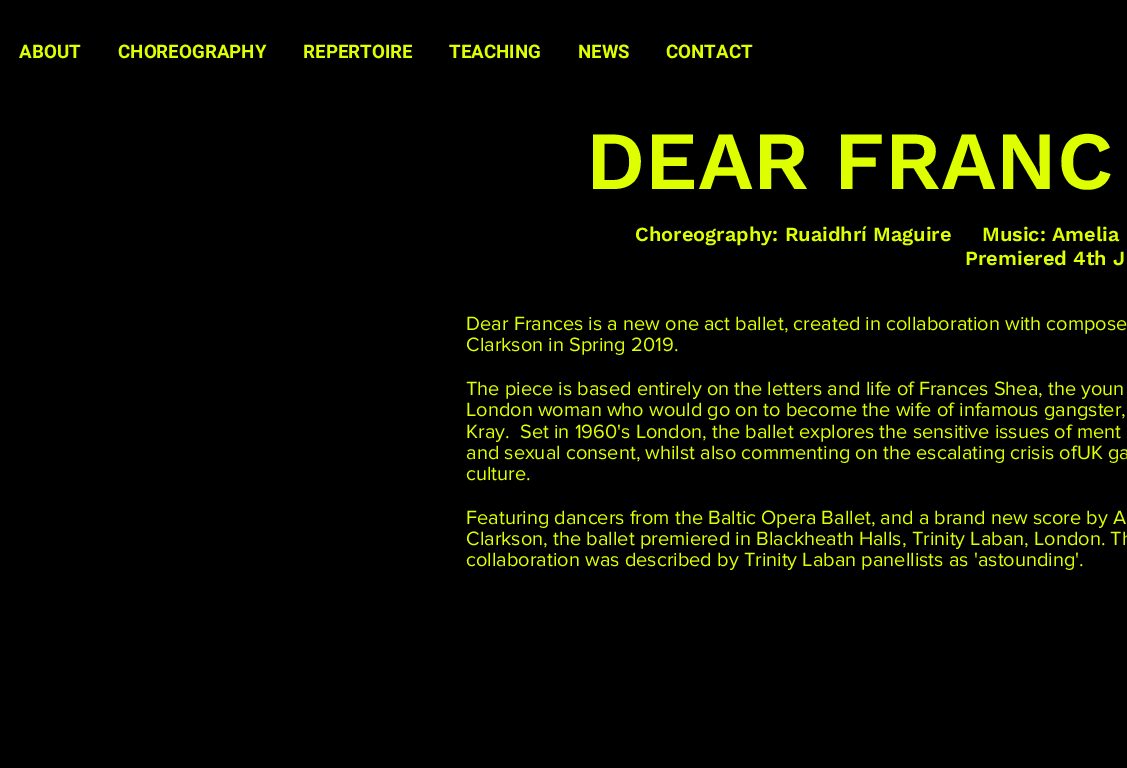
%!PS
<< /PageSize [1127 768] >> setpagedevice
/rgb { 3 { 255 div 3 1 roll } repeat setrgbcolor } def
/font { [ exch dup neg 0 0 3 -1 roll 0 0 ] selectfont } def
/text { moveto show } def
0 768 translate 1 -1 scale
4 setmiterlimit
0 0 0 rgb
0 0 1127 768 rectfill
/Roboto-Bold 18.75 font
221 255 0 rgb
(ABOUT) 19 58 text
(CHOREOGRAPHY) 118 58 text
(REPERTOIRE) 303 58 text
(TEACHING) 449 58 text
(NEWS) 578 58 text
(CONTACT) 666 58 text
/WorkSans-SemiBold 82.5 font
(DEAR FRANC) 586 189 text
/WorkSans-SemiBold 20 font
(Choreography: Ruaidhrí Maguire     Music: Amelia) 635 241 text
(Premiered 4th J) 965 265 text
/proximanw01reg-Regular 20 font
(Dear Frances is a new one act ballet, created in collaboration with compose) 466 330 text
(Clarkson in Spring 2019.) 466 351 text
(The piece is based entirely on the letters and life of Frances Shea, the youn) 466 395 text
(London woman who would go on to become the wife of infamous gangster,) 466 416 text
(Kray.  Set in 1960's London, the ballet explores the sensitive issues of ment) 466 438 text
(and sexual consent, whilst also commenting on the escalating crisis ofUK ga) 466 459 text
(culture.) 466 480 text
(Featuring dancers from the Baltic Opera Ballet, and a brand new score by A) 466 524 text
(Clarkson, the ballet premiered in Blackheath Halls, Trinity Laban, London. Th) 466 545 text
(collaboration was described by Trinity Laban panellists as 'astounding'.) 466 566 text
showpage
